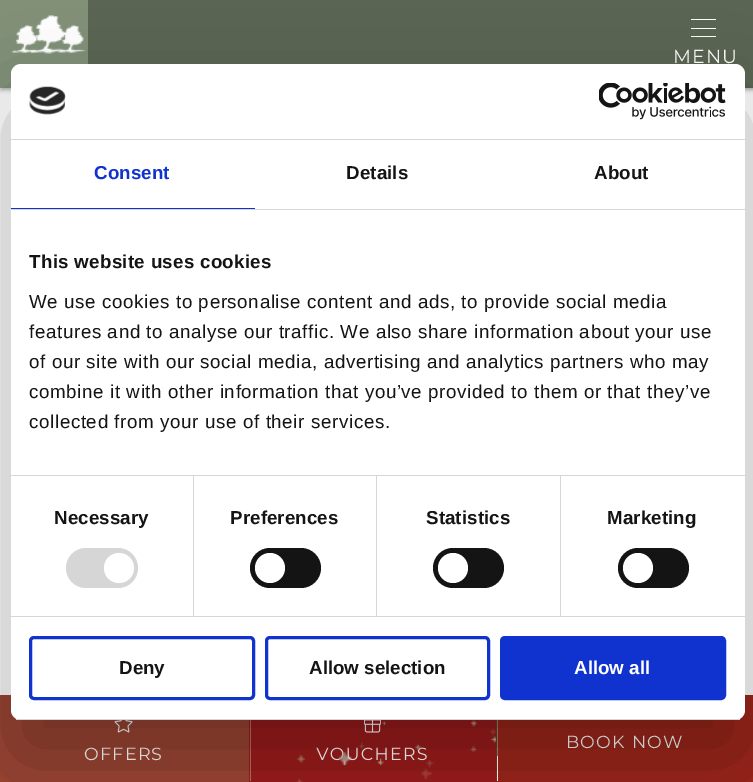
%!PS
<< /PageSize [753 782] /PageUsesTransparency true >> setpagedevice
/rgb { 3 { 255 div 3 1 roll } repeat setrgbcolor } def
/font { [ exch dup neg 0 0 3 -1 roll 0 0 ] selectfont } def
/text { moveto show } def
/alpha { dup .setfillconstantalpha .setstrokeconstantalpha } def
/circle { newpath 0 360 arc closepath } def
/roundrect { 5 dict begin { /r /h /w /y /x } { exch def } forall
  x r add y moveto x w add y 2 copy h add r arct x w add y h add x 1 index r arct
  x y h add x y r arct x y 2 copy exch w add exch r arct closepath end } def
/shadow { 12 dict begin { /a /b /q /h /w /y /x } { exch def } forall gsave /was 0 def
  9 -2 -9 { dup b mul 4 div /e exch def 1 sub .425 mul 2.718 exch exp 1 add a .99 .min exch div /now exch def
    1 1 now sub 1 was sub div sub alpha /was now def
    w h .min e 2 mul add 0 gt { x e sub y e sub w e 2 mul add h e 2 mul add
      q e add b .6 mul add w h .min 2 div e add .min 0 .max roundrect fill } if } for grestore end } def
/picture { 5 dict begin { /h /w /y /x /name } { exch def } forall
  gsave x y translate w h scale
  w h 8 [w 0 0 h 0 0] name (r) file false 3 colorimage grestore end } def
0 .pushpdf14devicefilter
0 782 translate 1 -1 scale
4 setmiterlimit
255 255 255 rgb
0 0 753 782 rectfill
125 125 125 rgb
0 0 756 90 0 2 0.59 shadow
90 101 83 rgb
88 0 665 88 rectfill
129 144 119 rgb
0 0 88 88 rectfill
(img_01.rgb) 11 15 75 39 picture
255 255 255 rgb
691 19 25 1 rectfill
691 28 25 1 rectfill
691 36 25 1 rectfill
129 144 119 rgb
497 720 1 36 rectfill
156 37 26 rgb
498 698 255 83 rectfill
745 695 8 3 rectfill
156 70 51 rgb
0 695 249 87 rectfill
(img_02.rgb) 114 720 19 13 picture
156 27 27 rgb
249 720 247 62 rectfill
191 107 107 rgb
250 720 1 61 rectfill
(img_04.rgb) 364 720 17 13 picture
/Montserrat-Regular 18.75 font
255 255 255 rgb
673 63 moveto 1.25 0 (MENU) ashow
/Montserrat-Regular 17.5 font
566 748 moveto 1.25 0 (BOOK NOW) ashow
84 760 moveto 1.25 0 (OFFERS) ashow
316 760 moveto 1.25 0 (VOUCHERS) ashow
(img_03.rgb) 296 720 202 62 picture
156 37 26 rgb
496 781 257 1 rectfill
496 720 1 62 rectfill
0 0 0 rgb
11 104 734 656 10 42.5 0.3 shadow
255 255 255 rgb
11 64 734 656 10 roundrect fill
214 214 214 rgb
11 139 734 1 rectfill
(img_05.rgb) 29 86 37 29 picture
(img_06.rgb) 599 83 127 37 picture
11 209 734 1 rectfill
16 50 207 rgb
11 208 244 1 rectfill
/LiberationSans-Bold 18.75 font
94 179 moveto 0.1 0 (Consent) ashow
20 20 20 rgb
346 179 moveto 0.1 0 (Details) ashow
594 179 moveto 0.1 0 (About) ashow
214 214 214 rgb
11 475 734 1 rectfill
20 20 20 rgb
29 268 moveto 0.3 0 (This website uses cookies) ashow
/LiberationSans-Regular 18.75 font
29 308 moveto 0.62 0 (We use cookies to personalise content and ads, to provide social media) ashow
29 338 moveto 0.62 0 (features and to analyse our traffic. We also share information about your use) ashow
29 368 moveto 0.62 0 (of our site with our social media, advertising and analytics partners who may) ashow
29 398 moveto 0.62 0 (combine it with other information that you’ve provided to them or that they’ve) ashow
29 428 moveto 0.62 0 (collected from your use of their services.) ashow
214 214 214 rgb
11 616 734 1 rectfill
193 476 1 140 rectfill
/LiberationSans-Bold 18.75 font
20 20 20 rgb
54 524 moveto 0.1 0 (Necessary) ashow
214 214 214 rgb
66 548 72 40 20 roundrect fill
255 255 255 rgb
119 568 15 circle fill
214 214 214 rgb
376 476 1 140 rectfill
20 20 20 rgb
230 524 moveto 0.1 0 (Preferences) ashow
250 548 71 40 20 roundrect fill
255 255 255 rgb
270 568 15 circle fill
214 214 214 rgb
560 476 1 140 rectfill
20 20 20 rgb
426 524 moveto 0.1 0 (Statistics) ashow
433 548 71 40 20 roundrect fill
255 255 255 rgb
453 568 15 circle fill
20 20 20 rgb
607 524 moveto 0.1 0 (Marketing) ashow
618 548 71 40 20 roundrect fill
255 255 255 rgb
638 568 15 circle fill
gsave
11 64 734 656 10 roundrect clip newpath
214 214 214 rgb
11 719 734 1 rectfill
grestore
16 50 207 rgb
3 setlinewidth
30.5 637.5 223 61 3.5 roundrect stroke
20 20 20 rgb
(Deny) 119 674 text
16 50 207 rgb
266.5 637.5 222 61 3.5 roundrect stroke
20 20 20 rgb
(Allow selection) 309 674 text
16 50 207 rgb
501.5 637.5 223 61 3.5 roundrect gsave fill grestore
stroke
255 255 255 rgb
(Allow all) 574 674 text
.poppdf14devicefilter showpage
